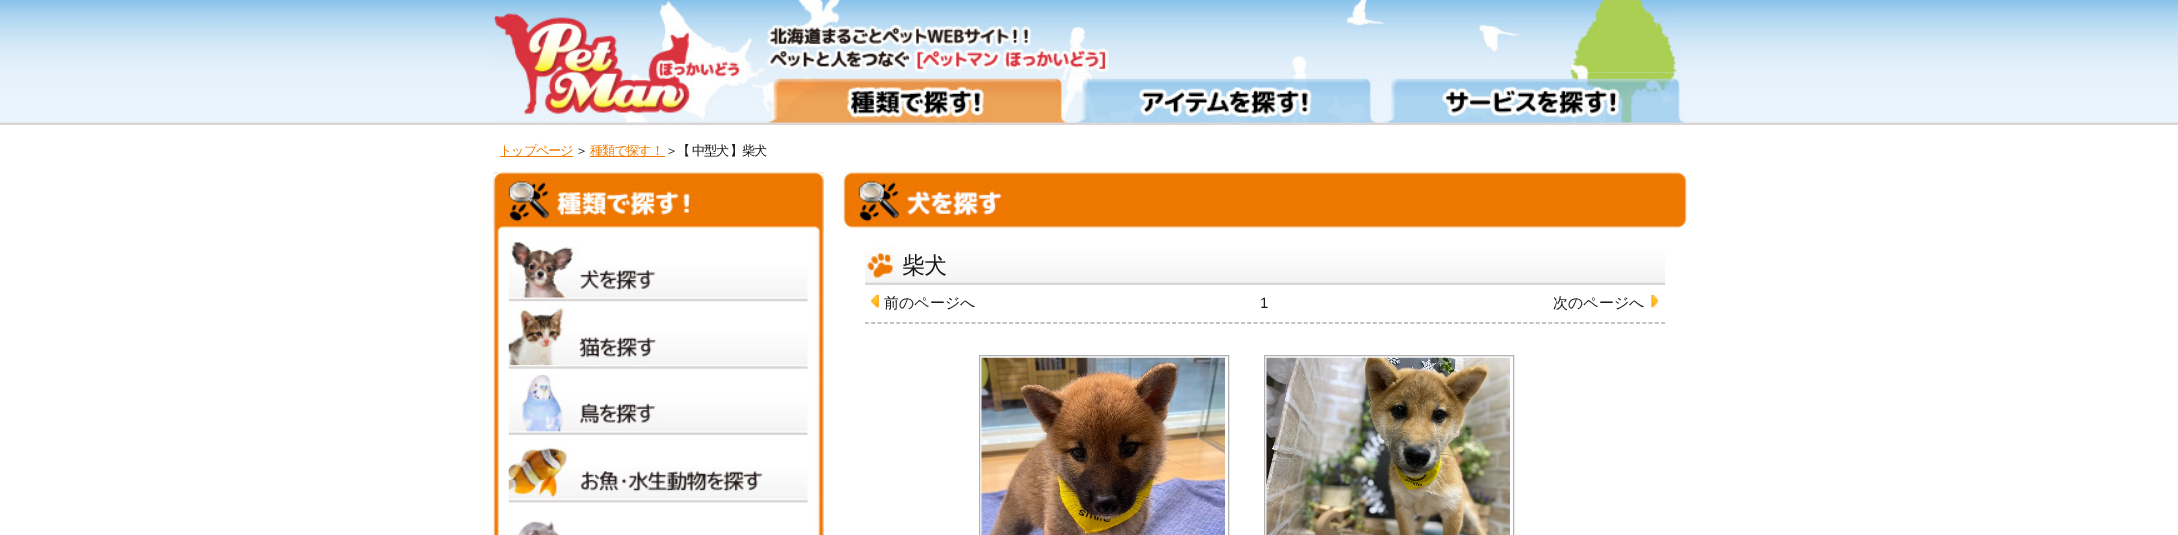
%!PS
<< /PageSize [2178 535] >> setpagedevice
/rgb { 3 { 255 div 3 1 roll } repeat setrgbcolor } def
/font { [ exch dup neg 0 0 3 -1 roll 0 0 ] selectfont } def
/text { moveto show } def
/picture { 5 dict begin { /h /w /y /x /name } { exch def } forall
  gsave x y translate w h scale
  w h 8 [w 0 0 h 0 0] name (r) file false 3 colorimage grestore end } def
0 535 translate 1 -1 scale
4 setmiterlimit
255 255 255 rgb
0 0 2178 535 rectfill
(img_01.rgb) 0 0 2178 125 picture
(img_02.rgb) 493 0 275 125 picture
(img_03.rgb) 767 0 911 73 picture
(img_04.rgb) 767 72 310 51 picture
(img_05.rgb) 1076 72 300 51 picture
(img_06.rgb) 1385 72 300 51 picture
238 120 0 rgb
500 156 73 1 rectfill
590 156 75 1 rectfill
(img_07.rgb) 493 172 331 363 picture
(img_08.rgb) 493 172 331 58 picture
(img_09.rgb) 508 241 300 61 picture
(img_10.rgb) 508 304 300 65 picture
(img_11.rgb) 508 374 300 61 picture
(img_12.rgb) 508 447 300 56 picture
(img_13.rgb) 518 521 41 14 picture
(img_14.rgb) 843 172 844 56 picture
(img_15.rgb) 865 246 800 39 picture
(img_16.rgb) 871 295 8 13 picture
(img_17.rgb) 1651 295 8 13 picture
179 173 172 rgb
1.2 setlinewidth
[3.75 2.52] 0 setdash
865 323 moveto 800 0 rlineto stroke
178 178 178 rgb
1 setlinewidth
[] 0 setdash
979.5 355.5 249 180 rectstroke
(img_18.rgb) 981 357 244 178 picture
1264.5 355.5 249 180 rectstroke
(img_19.rgb) 1266 357 244 178 picture
/WenQuanYiZenHei-Medium 13.25 font
238 120 0 rgb
499 155 moveto -1.25 0 (トップページ) ashow
26 26 26 rgb
575 155 moveto -1.25 0 (＞) ashow
238 120 0 rgb
590 155 moveto -1.25 0 (種類で探す！) ashow
26 26 26 rgb
665 155 moveto -1.25 0 (＞【 中型犬 】柴犬) ashow
/WenQuanYiZenHei-Medium 23 font
902 273 moveto -1.25 0 (柴犬) ashow
/WenQuanYiZenHei-Medium 15 font
(前のページへ) 884 308 text
/LiberationSans-Regular 15 font
(1) 1260 308 text
/WenQuanYiZenHei-Medium 15 font
(次のページへ) 1553 308 text
showpage
